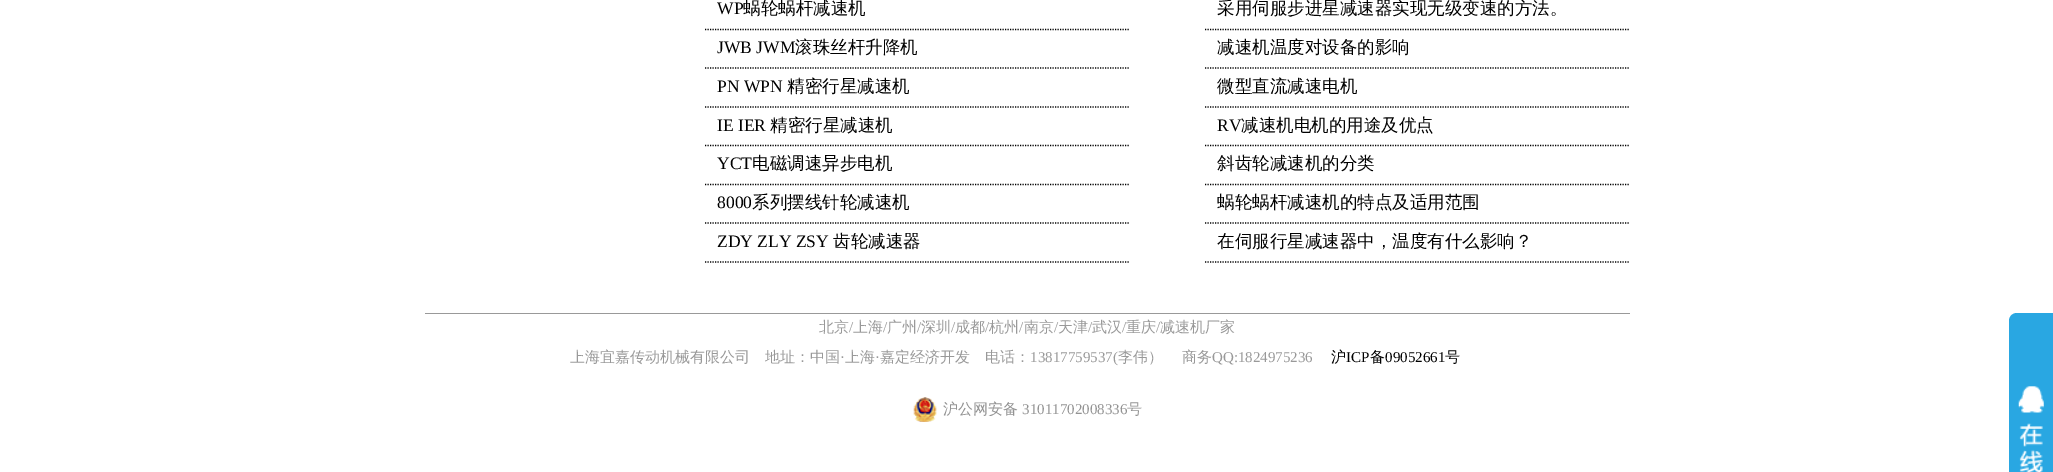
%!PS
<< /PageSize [2053 472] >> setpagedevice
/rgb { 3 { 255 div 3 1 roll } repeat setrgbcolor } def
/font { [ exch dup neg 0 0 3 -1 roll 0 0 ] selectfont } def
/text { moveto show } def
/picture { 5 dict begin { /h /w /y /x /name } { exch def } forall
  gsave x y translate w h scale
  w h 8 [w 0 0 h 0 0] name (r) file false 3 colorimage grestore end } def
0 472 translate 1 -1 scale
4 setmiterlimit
255 255 255 rgb
0 0 2053 472 rectfill
0 0 0 rgb
1.2 setlinewidth
[1.25 1.25] 0 setdash
705 29.5 moveto 425 0 rlineto stroke
705 68 moveto 425 0 rlineto stroke
705 107 moveto 425 0 rlineto stroke
705 145.5 moveto 425 0 rlineto stroke
705 184.5 moveto 425 0 rlineto stroke
705 223 moveto 425 0 rlineto stroke
705 262 moveto 425 0 rlineto stroke
1205 29.5 moveto 425 0 rlineto stroke
1205 68 moveto 425 0 rlineto stroke
1205 107 moveto 425 0 rlineto stroke
1205 145.5 moveto 425 0 rlineto stroke
1205 184.5 moveto 425 0 rlineto stroke
1205 223 moveto 425 0 rlineto stroke
1205 262 moveto 425 0 rlineto stroke
153 153 153 rgb
425 313 1205 1 rectfill
(img_01.rgb) 913 397 24 25 picture
41 167 226 rgb
2017 313 moveto 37 0 rlineto 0 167 rlineto -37 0 rlineto -4.5 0 -8 -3.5 -8 -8 rcurveto 0 -151 rlineto 0 -4.5 3.5 -8 8 -8 rcurveto closepath fill
(img_02.rgb) 2018 386 26 86 picture
/LiberationSerif-Regular 17.5 font
0 0 0 rgb
(WP) 717 14 text
/WenQuanYiZenHei-Medium 17.5 font
(蜗轮蜗杆减速机) 743 14 text
/LiberationSerif-Regular 17.5 font
(JWB JWM) 717 53 text
/WenQuanYiZenHei-Medium 17.5 font
(滚珠丝杆升降机) 795 53 text
/LiberationSerif-Regular 17.5 font
(PN WPN) 717 92 text
/WenQuanYiZenHei-Medium 17.5 font
(精密行星减速机) 787 92 text
/LiberationSerif-Regular 17.5 font
(IE IER) 717 131 text
/WenQuanYiZenHei-Medium 17.5 font
(精密行星减速机) 770 131 text
/LiberationSerif-Regular 17.5 font
(YCT) 717 169 text
/WenQuanYiZenHei-Medium 17.5 font
(电磁调速异步电机) 752 169 text
/LiberationSerif-Regular 17.5 font
(8000) 717 208 text
/WenQuanYiZenHei-Medium 17.5 font
(系列摆线针轮减速机) 752 208 text
/LiberationSerif-Regular 17.5 font
(ZDY ZLY ZSY) 717 247 text
/WenQuanYiZenHei-Medium 17.5 font
(齿轮减速器) 833 247 text
(采用伺服步进星减速器实现无级变速的方法。) 1217 14 text
(减速机温度对设备的影响) 1217 53 text
(微型直流减速电机) 1217 92 text
/LiberationSerif-Regular 17.5 font
(RV) 1217 131 text
/WenQuanYiZenHei-Medium 17.5 font
(减速机电机的用途及优点) 1241 131 text
(斜齿轮减速机的分类) 1217 169 text
(蜗轮蜗杆减速机的特点及适用范围) 1217 208 text
(在伺服行星减速器中，温度有什么影响？) 1217 247 text
/WenQuanYiZenHei-Medium 15 font
153 153 153 rgb
(北京) 819 332 text
/LiberationSerif-Regular 15 font
(/) 849 332 text
/WenQuanYiZenHei-Medium 15 font
(上海) 853 332 text
/LiberationSerif-Regular 15 font
(/) 883 332 text
/WenQuanYiZenHei-Medium 15 font
(广州) 887 332 text
/LiberationSerif-Regular 15 font
(/) 917 332 text
/WenQuanYiZenHei-Medium 15 font
(深圳) 921 332 text
/LiberationSerif-Regular 15 font
(/) 951 332 text
/WenQuanYiZenHei-Medium 15 font
(成都) 955 332 text
/LiberationSerif-Regular 15 font
(/) 985 332 text
/WenQuanYiZenHei-Medium 15 font
(杭州) 989 332 text
/LiberationSerif-Regular 15 font
(/) 1019 332 text
/WenQuanYiZenHei-Medium 15 font
(南京) 1024 332 text
/LiberationSerif-Regular 15 font
(/) 1054 332 text
/WenQuanYiZenHei-Medium 15 font
(天津) 1058 332 text
/LiberationSerif-Regular 15 font
(/) 1088 332 text
/WenQuanYiZenHei-Medium 15 font
(武汉) 1092 332 text
/LiberationSerif-Regular 15 font
(/) 1122 332 text
/WenQuanYiZenHei-Medium 15 font
(重庆) 1126 332 text
/LiberationSerif-Regular 15 font
(/) 1156 332 text
/WenQuanYiZenHei-Medium 15 font
(减速机厂家) 1160 332 text
(上海宜嘉传动机械有限公司) 570 362 text
(地址：中国) 765 362 text
/LiberationSerif-Regular 15 font
(·) 840 362 text
/WenQuanYiZenHei-Medium 15 font
(上海) 845 362 text
/LiberationSerif-Regular 15 font
(·) 875 362 text
/WenQuanYiZenHei-Medium 15 font
(嘉定经济开发) 880 362 text
(电话：) 985 362 text
/LiberationSerif-Regular 15 font
(13817759537\() 1030 362 text
/WenQuanYiZenHei-Medium 15 font
(李伟）) 1118 362 text
(商务) 1182 362 text
/LiberationSerif-Regular 15 font
(QQ:1824975236) 1212 362 text
/WenQuanYiZenHei-Medium 15 font
0 0 0 rgb
(沪) 1331 362 text
/LiberationSerif-Regular 15 font
(ICP) 1346 362 text
/WenQuanYiZenHei-Medium 15 font
(备) 1370 362 text
/LiberationSerif-Regular 15 font
(09052661) 1385 362 text
/WenQuanYiZenHei-Medium 15 font
(号) 1445 362 text
147 147 147 rgb
(沪公网安备) 943 414 text
/LiberationSerif-Regular 15 font
(31011702008336) 1022 414 text
/WenQuanYiZenHei-Medium 15 font
(号) 1127 414 text
showpage
